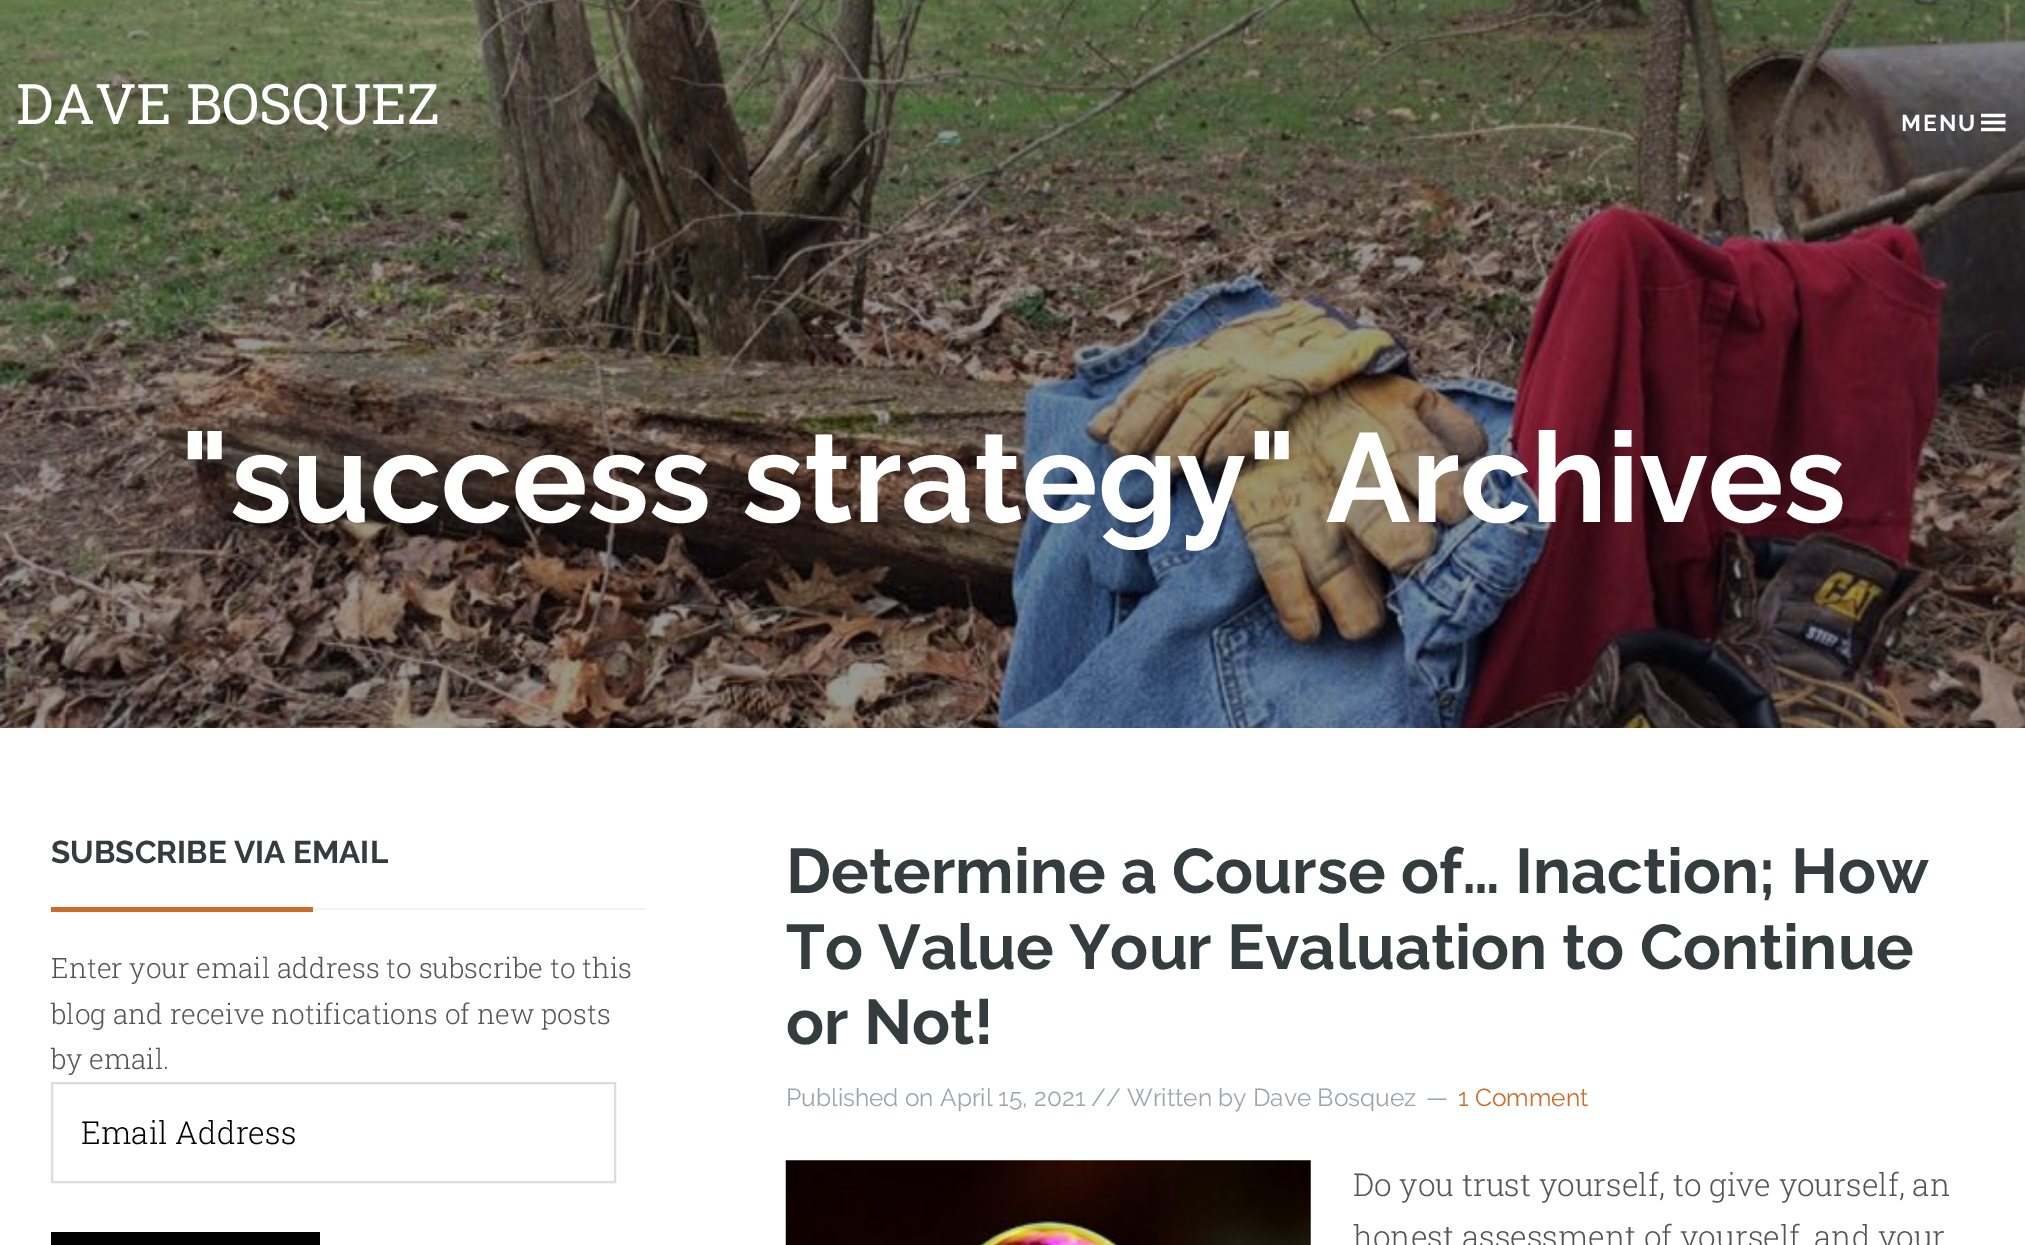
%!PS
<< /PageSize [2025 1245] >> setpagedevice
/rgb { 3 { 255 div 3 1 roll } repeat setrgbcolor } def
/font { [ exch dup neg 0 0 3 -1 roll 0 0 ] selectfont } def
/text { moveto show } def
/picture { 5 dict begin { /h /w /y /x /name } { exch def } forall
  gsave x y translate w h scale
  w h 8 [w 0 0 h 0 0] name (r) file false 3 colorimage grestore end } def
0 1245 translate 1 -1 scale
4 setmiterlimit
255 255 255 rgb
0 0 2025 1245 rectfill
(img_02.rgb) 0 0 2025 728 picture
(img_01.rgb) 1981 113 25 19 picture
243 243 243 rgb
313 908 333 2 rectfill
203 108 40 rgb
51 907 262 5 rectfill
221 221 221 rgb
2 setlinewidth
52 1083 563 99 rectstroke
0 0 0 rgb
51 1232 269 13 rectfill
(img_03.rgb) 785 1160 526 85 picture
/RobotoSlab-Regular 56 font
255 255 255 rgb
(DAVE BOSQUEZ) 16 124 text
/Raleway-Bold 23 font
1901 131 moveto 2 0 (MENU) ashow
/Raleway-Bold 126 font
("success strategy" Archives) 180 522 text
/Raleway-Bold 31.5 font
52 60 62 rgb
(SUBSCRIBE VIA EMAIL) 51 863 text
/RobotoSlab-Light 28 font
85 85 85 rgb
(Enter your email address to subscribe to this) 51 978 text
(blog and receive notifications of new posts) 51 1024 text
(by email.) 51 1069 text
/RobotoSlab-Light 31.5 font
0 0 0 rgb
(Email Address) 81 1144 text
/Raleway-Bold 63 font
52 60 62 rgb
(Determine a Course of… Inaction; How) 786 893 text
(To Value Your Evaluation to Continue) 786 969 text
(or Not!) 786 1044 text
/Raleway-Regular 24.5 font
156 164 175 rgb
(Published on April 15, 2021 // Written by Dave Bosquez) 786 1106 text
(—) 1426 1106 text
203 108 40 rgb
(1 Comment) 1458 1106 text
/RobotoSlab-Light 31.5 font
85 85 85 rgb
(Do you trust yourself, to give yourself, an) 1353 1196 text
(honest assessment of yourself, and your) 1353 1248 text
showpage
